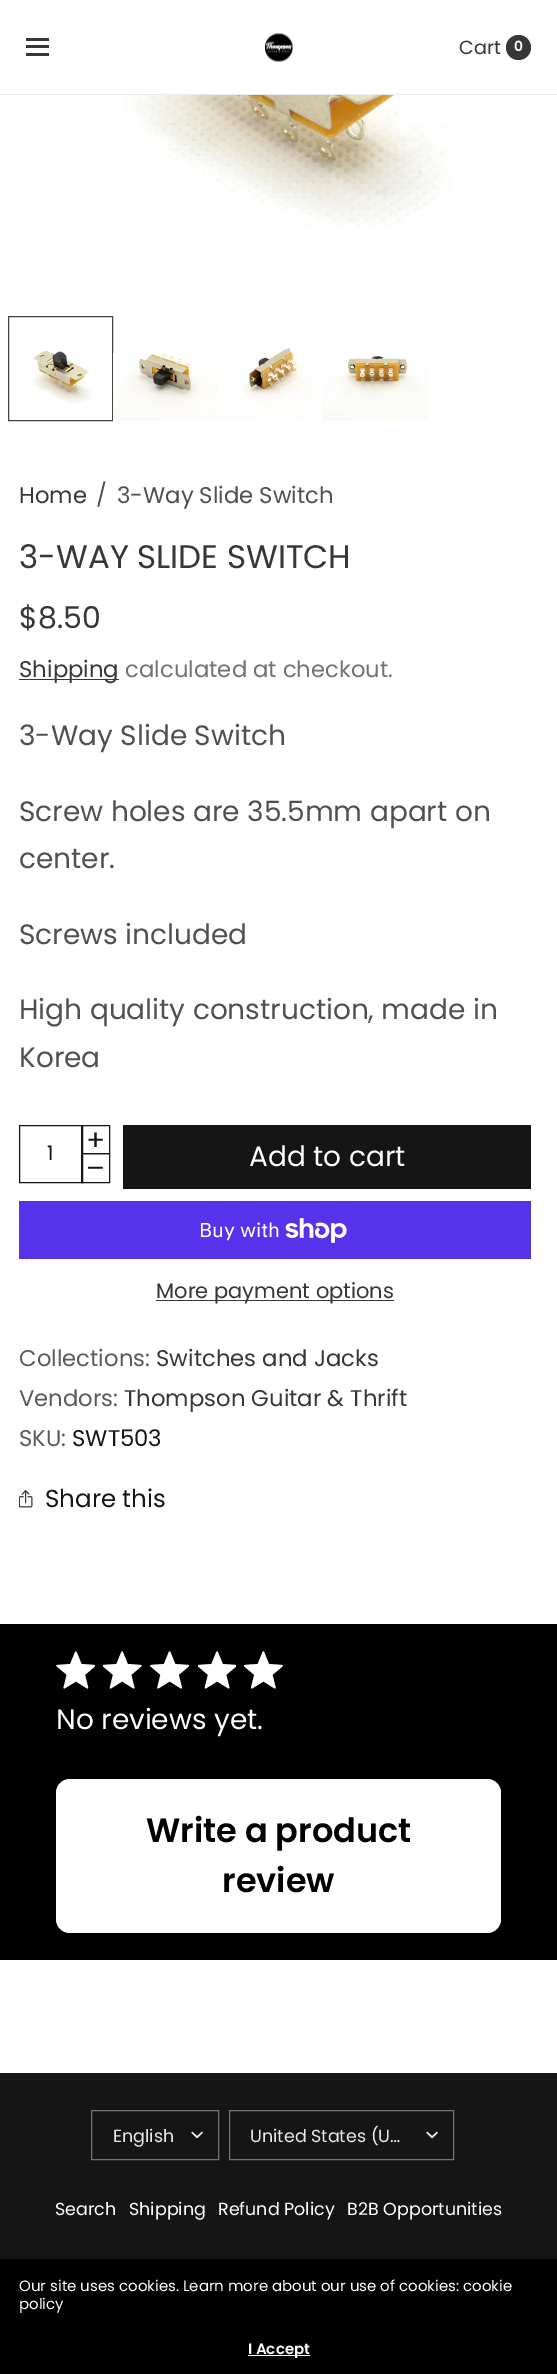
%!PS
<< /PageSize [557 2374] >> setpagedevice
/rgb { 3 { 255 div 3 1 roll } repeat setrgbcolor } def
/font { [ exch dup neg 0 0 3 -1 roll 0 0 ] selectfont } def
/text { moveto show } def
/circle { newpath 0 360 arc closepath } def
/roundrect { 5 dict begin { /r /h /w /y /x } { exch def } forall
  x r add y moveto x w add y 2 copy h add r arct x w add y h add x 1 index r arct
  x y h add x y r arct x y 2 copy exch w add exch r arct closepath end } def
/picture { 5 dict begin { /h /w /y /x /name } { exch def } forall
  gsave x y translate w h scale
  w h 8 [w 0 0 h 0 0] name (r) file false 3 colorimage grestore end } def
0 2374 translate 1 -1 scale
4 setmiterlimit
255 255 255 rgb
0 0 557 2374 rectfill
234 234 234 rgb
0 94 557 1 rectfill
55 55 55 rgb
26 38 23 3 rectfill
26 45 23 3 rectfill
26 53 23 3 rectfill
(img_01.rgb) 265 33 28 29 picture
518.5 47.5 12.5 circle fill
(img_02.rgb) 124 95 349 137 picture
(img_03.rgb) 31 350 61 53 picture
68 68 68 rgb
8.5 316.5 104 104 rectstroke
(img_04.rgb) 113 353 105 68 picture
(img_05.rgb) 218 347 95 74 picture
(img_06.rgb) 322 355 106 66 picture
55 55 55 rgb
19 679 100 1 rectfill
21 21 21 rgb
19.5 1125.5 63 57 rectstroke
81.5 1125.5 28 28 rectstroke
81.5 1153.5 28 29 rectstroke
123 1125 408 64 rectfill
84 51 235 rgb
19 1201 512 58 rectfill
(img_07.rgb) 285 1218 62 25 picture
55 55 55 rgb
156 1300 238 1 rectfill
(img_08.rgb) 19 1490 14 18 picture
0 0 0 rgb
0 1624 557 336 rectfill
(img_09.rgb) 56 1651 39 38 picture
(img_10.rgb) 103 1651 39 38 picture
(img_11.rgb) 150 1651 39 38 picture
(img_12.rgb) 198 1651 38 38 picture
(img_13.rgb) 244 1651 39 38 picture
255 255 255 rgb
56 1779 445 154 14 roundrect fill
21 21 21 rgb
0 2073 557 186 rectfill
117 117 117 rgb
91.5 2110.5 127 49 rectstroke
(img_14.rgb) 191 2131 12 8 picture
229.5 2110.5 224 49 rectstroke
(img_14.rgb) 426 2131 12 8 picture
0 0 0 rgb
0 2259 557 115 rectfill
255 255 255 rgb
248 2355 62 1 rectfill
/Poppins-Regular 19 font
55 55 55 rgb
(Cart) 459 54 text
/Poppins-SemiBold 14 font
255 255 255 rgb
(0) 514 51 text
/Poppins-Regular 22.75 font
55 55 55 rgb
(Home) 19 503 text
80 80 80 rgb
(/) 96 503 text
(3-Way Slide Switch) 117 503 text
/Poppins-Regular 32.5 font
55 55 55 rgb
(3-WAY SLIDE SWITCH) 19 568 text
/Poppins-Regular 30 font
($8.50) 19 628 text
/Poppins-Regular 22.75 font
(Shipping) 19 677 text
115 115 115 rgb
(calculated at checkout.) 125 677 text
/Poppins-Regular 28 font
80 80 80 rgb
(3-Way Slide Switch) 19 745 text
(Screw holes are 35.5mm apart on) 19 821 text
(center.) 19 868 text
(Screws included) 19 944 text
(High quality construction, made in) 19 1019 text
(Korea) 19 1067 text
21 21 21 rgb
(+) 86 1150 text
/Poppins-Regular 20 font
(1) 47 1160 text
/Poppins-Regular 28 font
(–) 86 1178 text
255 255 255 rgb
(Add to cart) 249 1166 text
/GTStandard-Regular 20 font
(Buy with) 199 1237 text
/Poppins-Regular 21 font
55 55 55 rgb
(More payment options) 156 1298 text
/Poppins-Regular 22.75 font
91 91 91 rgb
(Collections:) 19 1366 text
55 55 55 rgb
(Switches and Jacks) 156 1366 text
91 91 91 rgb
(Vendors:) 19 1406 text
55 55 55 rgb
(Thompson Guitar & Thrift) 124 1406 text
91 91 91 rgb
(SKU:) 19 1446 text
21 21 21 rgb
(SWT503) 72 1446 text
/Poppins-Regular 24.5 font
(Share this) 45 1507 text
/Poppins-Regular 28 font
255 255 255 rgb
(No reviews yet.) 56 1729 text
/Poppins-SemiBold 33.5 font
0 0 0 rgb
(Write a product) 146 1842 text
(review) 222 1892 text
/Poppins-Regular 17.5 font
234 234 234 rgb
(English) 113 2142 text
(United States \(U…) 250 2142 text
255 255 255 rgb
(Search) 55 2215 text
(Shipping) 129 2215 text
(Refund Policy) 218 2215 text
(B2B Opportunities) 347 2215 text
/Poppins-Regular 15 font
(Our site uses cookies. Learn more about our use of cookies: cookie) 19 2291 text
(policy) 19 2309 text
/Poppins-SemiBold 15 font
(I Accept) 248 2354 text
showpage
